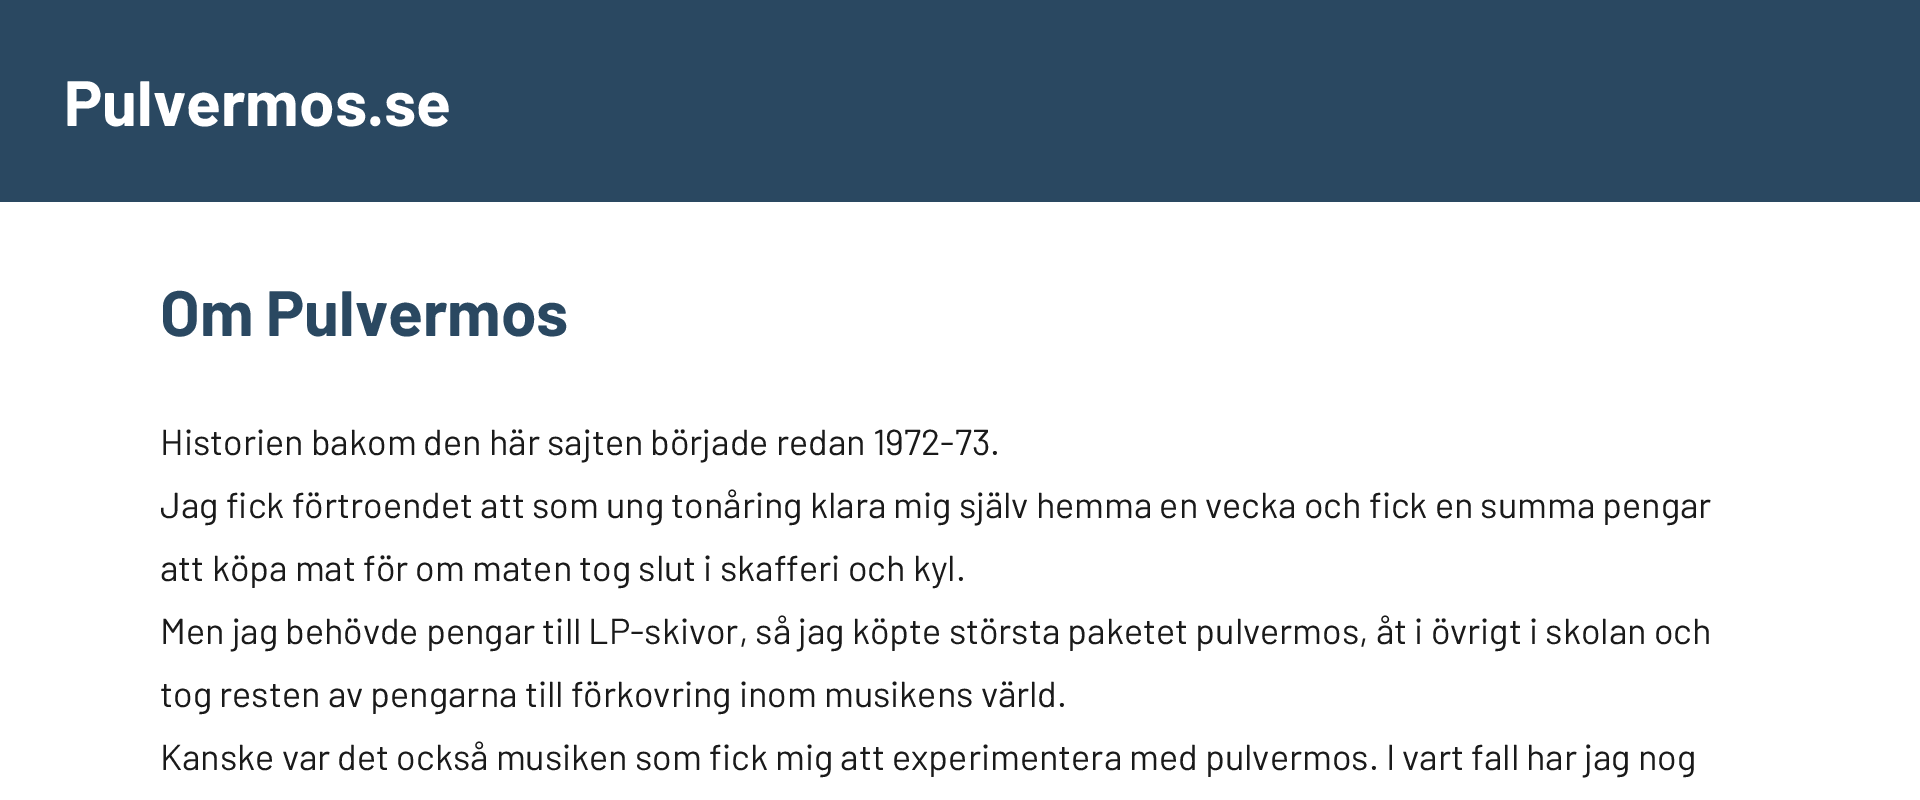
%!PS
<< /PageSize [1920 800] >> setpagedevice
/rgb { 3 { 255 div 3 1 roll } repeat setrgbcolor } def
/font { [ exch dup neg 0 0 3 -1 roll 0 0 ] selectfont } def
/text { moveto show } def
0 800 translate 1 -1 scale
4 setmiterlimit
42 72 97 rgb
0 0 1920 800 rectfill
255 255 255 rgb
0 202 1920 598 rectfill
/Barlow-Bold 64 font
(Pulvermos.se) 64 126 text
42 72 97 rgb
(Om Pulvermos) 160 336 text
/Barlow-Regular 36 font
26 26 26 rgb
(Historien bakom den här sajten började redan 1972-73.) 160 455 text
(Jag fick förtroendet att som ung tonåring klara mig själv hemma en vecka och fick en summa pengar) 160 518 text
(att köpa mat för om maten tog slut i skafferi och kyl.) 160 581 text
(Men jag behövde pengar till LP-skivor, så jag köpte största paketet pulvermos, åt i övrigt i skolan och) 160 644 text
(tog resten av pengarna till förkovring inom musikens värld.) 160 707 text
(Kanske var det också musiken som fick mig att experimentera med pulvermos. I vart fall har jag nog) 160 770 text
showpage
